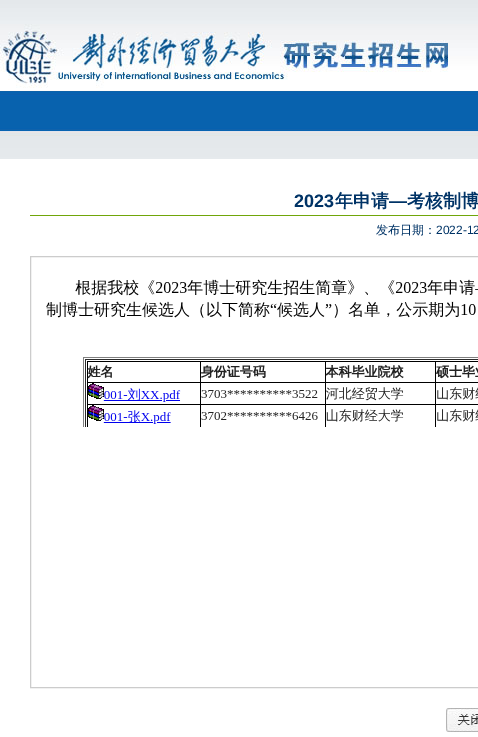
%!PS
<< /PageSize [478 737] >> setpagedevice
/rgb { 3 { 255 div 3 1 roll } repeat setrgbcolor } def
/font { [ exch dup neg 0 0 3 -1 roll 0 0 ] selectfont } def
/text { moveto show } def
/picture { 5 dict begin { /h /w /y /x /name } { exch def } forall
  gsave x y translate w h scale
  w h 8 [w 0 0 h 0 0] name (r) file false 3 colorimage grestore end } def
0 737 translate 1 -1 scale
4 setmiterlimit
255 255 255 rgb
0 0 478 737 rectfill
(img_01.rgb) 0 0 478 159 picture
(img_02.rgb) 0 24 478 66 picture
112 166 9 rgb
30 215 448 1 rectfill
204 204 204 rgb
30.5 256.5 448 431 rectstroke
(img_03.rgb) 46 279 432 148 picture
(img_04.rgb) 446 708 32 24 picture
/LiberationSans-Bold 18 font
0 51 102 rgb
(2023) 294 207 text
/WenQuanYiZenHei-Bold 18 font
(年申请) 335 207 text
/LiberationSans-Bold 18 font
(—) 389 207 text
/WenQuanYiZenHei-Bold 18 font
(考核制博) 407 207 text
/WenQuanYiZenHei-Medium 12 font
(发布日期：) 376 234 text
/LiberationSans-Regular 12 font
(2022-12) 436 234 text
showpage
